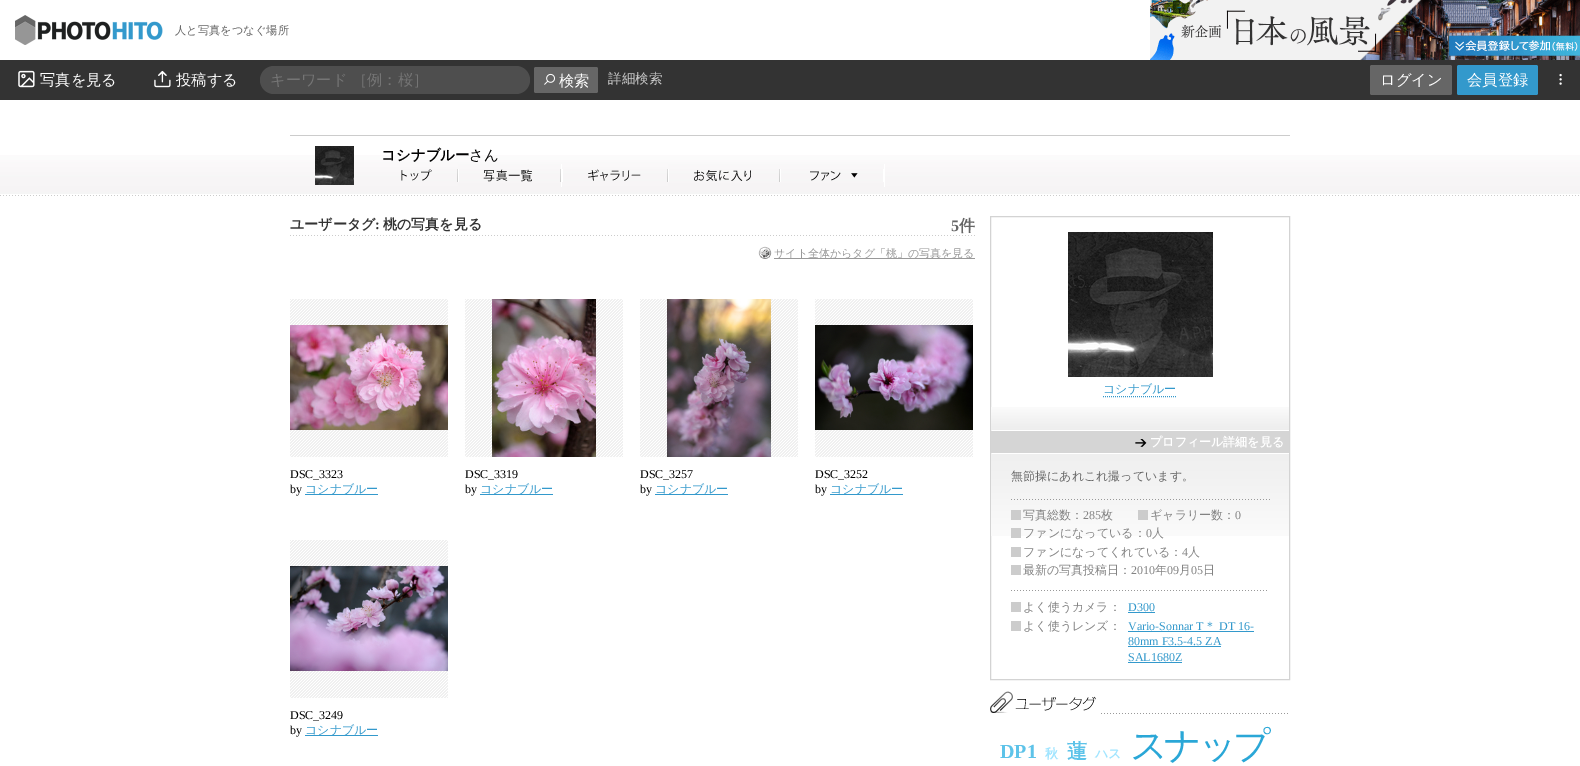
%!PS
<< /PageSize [1580 766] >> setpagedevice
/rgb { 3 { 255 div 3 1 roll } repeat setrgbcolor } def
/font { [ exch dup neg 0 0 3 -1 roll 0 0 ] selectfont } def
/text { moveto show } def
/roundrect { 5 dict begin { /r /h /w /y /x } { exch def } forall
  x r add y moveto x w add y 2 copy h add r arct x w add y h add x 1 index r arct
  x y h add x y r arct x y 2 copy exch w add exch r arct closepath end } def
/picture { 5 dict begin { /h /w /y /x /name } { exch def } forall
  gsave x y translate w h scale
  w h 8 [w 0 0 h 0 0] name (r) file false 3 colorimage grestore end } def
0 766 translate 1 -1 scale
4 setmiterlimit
255 255 255 rgb
0 0 1580 766 rectfill
(img_01.rgb) 15 15 148 30 picture
(img_02.rgb) 1150 0 430 60 picture
51 51 51 rgb
0 60 1580 40 rectfill
(img_03.rgb) 18 70 17 18 picture
(img_04.rgb) 154 70 17 18 picture
78 78 78 rgb
260 66 270 28 14 roundrect fill
102 102 102 rgb
534 67 64 26 2 roundrect fill
(img_05.rgb) 544 73 11 12 picture
1370 65 82 30 2 roundrect fill
51 153 204 rgb
1457 65 81 30 2 roundrect fill
(img_06.rgb) 1559 73 3 12 picture
204 204 204 rgb
290 135 1000 1 rectfill
(img_07.rgb) 0 155 1580 41 picture
(img_08.rgb) 315 146 39 39 picture
(img_09.rgb) 401 169 57 13 picture
(img_10.rgb) 458 164 103 23 picture
255 255 255 rgb
561 164 1 23 rectfill
(img_11.rgb) 562 169 106 13 picture
(img_12.rgb) 668 164 112 23 picture
(img_13.rgb) 780 164 104 23 picture
884 164 1 23 rectfill
(img_14.rgb) 290 235 685 1 picture
(img_15.rgb) 758 246 14 13 picture
153 153 153 rgb
774 258 201 1 rectfill
(img_16.rgb) 290 299 158 158 picture
(img_17.rgb) 290 325 158 105 picture
51 153 204 rgb
305 494 73 1 rectfill
(img_16.rgb) 465 299 158 158 picture
(img_18.rgb) 492 299 104 158 picture
480 494 73 1 rectfill
(img_16.rgb) 640 299 158 158 picture
(img_19.rgb) 667 299 104 158 picture
655 494 73 1 rectfill
(img_16.rgb) 815 299 158 158 picture
(img_20.rgb) 815 325 158 105 picture
830 494 73 1 rectfill
(img_16.rgb) 290 540 158 158 picture
(img_21.rgb) 290 566 158 105 picture
305 735 73 1 rectfill
211 211 211 rgb
990.5 216.5 299 463 rectstroke
(img_22.rgb) 991 407 298 23 picture
(img_23.rgb) 1068 232 145 145 picture
51 153 204 rgb
[1 1] 0 setdash
1103 396.5 moveto 74 0 rlineto stroke
213 213 213 rgb
991 431 298 22 rectfill
(img_24.rgb) 1135 439 12 8 picture
(img_25.rgb) 991 454 298 82 picture
(img_26.rgb) 1011 499 259 1 picture
204 204 204 rgb
1011 510 10 10 rectfill
1138 510 10 10 rectfill
1011 528 10 10 rectfill
1011 547 10 10 rectfill
1011 565 10 10 rectfill
(img_27.rgb) 1011 590 256 1 picture
1011 602 10 10 rectfill
51 153 204 rgb
1128 612 27 1 rectfill
204 204 204 rgb
1011 621 10 10 rectfill
51 153 204 rgb
1128 631 126 1 rectfill
1128 646 93 1 rectfill
1128 662 54 1 rectfill
(img_28.rgb) 1101 713 187 1 picture
(img_29.rgb) 990 691 109 23 picture
/WenQuanYiZenHei-Medium 11.25 font
102 102 102 rgb
(人と写真をつなぐ場所) 175 34 text
/WenQuanYiZenHei-Medium 15.25 font
255 255 255 rgb
(写真を見る) 40 85 text
(投稿する) 176 85 text
117 117 117 rgb
(キーワード ［例：桜］) 270 85 text
255 255 255 rgb
(検索) 559 86 text
/WenQuanYiZenHei-Medium 13.5 font
204 204 204 rgb
(詳細検索) 608 83 text
/WenQuanYiZenHei-Medium 15.25 font
255 255 255 rgb
(ログイン) 1380 85 text
(会員登録) 1467 85 text
/WenQuanYiZenHei-Bold 14.5 font
0 0 0 rgb
(コシナブルー) 381 160 text
/WenQuanYiZenHei-Medium 14.5 font
(さん) 469 160 text
/WenQuanYiZenHei-Bold 14 font
51 51 51 rgb
(ユーザータグ) 290 229 text
/LiberationSerif-Bold 14 font
(:) 375 229 text
/WenQuanYiZenHei-Bold 14 font
(桃の写真を見る) 383 229 text
/LiberationSerif-Bold 16 font
102 102 102 rgb
(5) 951 231 text
/WenQuanYiZenHei-Bold 16 font
(件) 959 231 text
/WenQuanYiZenHei-Medium 11 font
153 153 153 rgb
(サイト全体からタグ「桃」の写真を見る) 774 257 text
/LiberationSerif-Regular 12 font
0 0 0 rgb
(DSC_3323) 290 478 text
(by) 290 493 text
/WenQuanYiZenHei-Medium 12 font
51 153 204 rgb
(コシナブルー) 305 493 text
/LiberationSerif-Regular 12 font
0 0 0 rgb
(DSC_3319) 465 478 text
(by) 465 493 text
/WenQuanYiZenHei-Medium 12 font
51 153 204 rgb
(コシナブルー) 480 493 text
/LiberationSerif-Regular 12 font
0 0 0 rgb
(DSC_3257) 640 478 text
(by) 640 493 text
/WenQuanYiZenHei-Medium 12 font
51 153 204 rgb
(コシナブルー) 655 493 text
/LiberationSerif-Regular 12 font
0 0 0 rgb
(DSC_3252) 815 478 text
(by) 815 493 text
/WenQuanYiZenHei-Medium 12 font
51 153 204 rgb
(コシナブルー) 830 493 text
/LiberationSerif-Regular 12 font
0 0 0 rgb
(DSC_3249) 290 719 text
(by) 290 734 text
/WenQuanYiZenHei-Medium 12 font
51 153 204 rgb
(コシナブルー) 305 734 text
(コシナブルー) 1103 393 text
/WenQuanYiZenHei-Bold 12 font
255 255 255 rgb
(プロフィール詳細を見る) 1150 446 text
/WenQuanYiZenHei-Medium 12 font
102 102 102 rgb
(無節操にあれこれ撮っています。) 1011 480 text
131 131 131 rgb
(写真総数：) 1023 519 text
/LiberationSerif-Regular 12 font
(285) 1083 519 text
/WenQuanYiZenHei-Medium 12 font
(枚) 1101 519 text
(ギャラリー数：) 1150 519 text
/LiberationSerif-Regular 12 font
(0) 1235 519 text
/WenQuanYiZenHei-Medium 12 font
(ファンになっている：) 1023 537 text
/LiberationSerif-Regular 12 font
(0) 1146 537 text
/WenQuanYiZenHei-Medium 12 font
(人) 1152 537 text
(ファンになってくれている：) 1023 556 text
/LiberationSerif-Regular 12 font
(4) 1182 556 text
/WenQuanYiZenHei-Medium 12 font
(人) 1188 556 text
(最新の写真投稿日：) 1023 574 text
/LiberationSerif-Regular 12 font
(2010) 1131 574 text
/WenQuanYiZenHei-Medium 12 font
(年) 1155 574 text
/LiberationSerif-Regular 12 font
(09) 1167 574 text
/WenQuanYiZenHei-Medium 12 font
(月) 1179 574 text
/LiberationSerif-Regular 12 font
(05) 1191 574 text
/WenQuanYiZenHei-Medium 12 font
(日) 1203 574 text
(よく使うカメラ：) 1023 611 text
/LiberationSerif-Regular 12 font
51 153 204 rgb
(D300) 1128 611 text
/WenQuanYiZenHei-Medium 12 font
131 131 131 rgb
(よく使うレンズ：) 1023 630 text
/LiberationSerif-Regular 12 font
51 153 204 rgb
(Vario-Sonnar T) 1128 630 text
/WenQuanYiZenHei-Medium 12 font
(＊) 1204 630 text
/LiberationSerif-Regular 12 font
(DT 16-) 1219 630 text
(80mm F3.5-4.5 ZA) 1128 645 text
(SAL1680Z) 1128 661 text
/LiberationSerif-Bold 20 font
93 195 233 rgb
(DP1) 1000 758 text
/WenQuanYiZenHei-Bold 13 font
161 229 255 rgb
(秋) 1045 758 text
/WenQuanYiZenHei-Bold 20 font
93 195 233 rgb
(蓮) 1067 758 text
/WenQuanYiZenHei-Bold 13 font
161 229 255 rgb
(ハス) 1095 758 text
/WenQuanYiZenHei-Medium 37 font
42 167 215 rgb
1130 758 moveto -3.5 0 (スナップ) ashow
showpage
